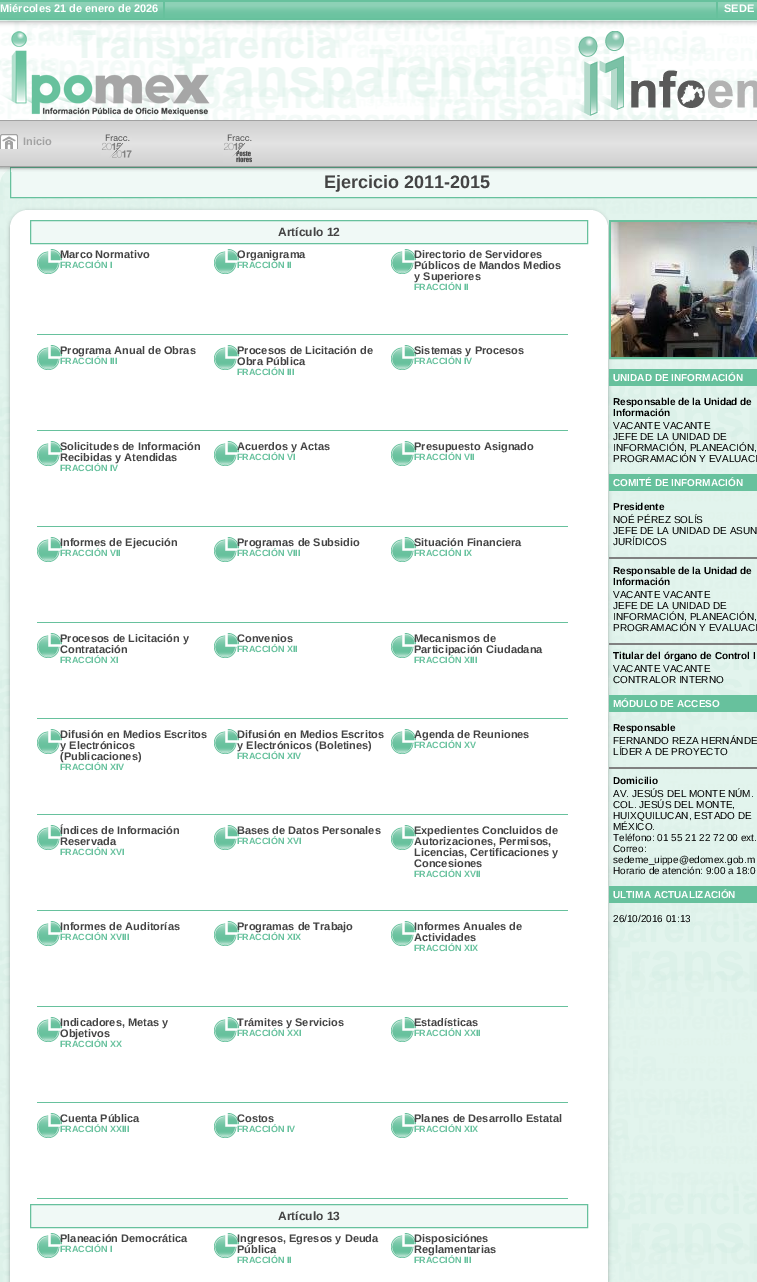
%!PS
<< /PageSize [757 1282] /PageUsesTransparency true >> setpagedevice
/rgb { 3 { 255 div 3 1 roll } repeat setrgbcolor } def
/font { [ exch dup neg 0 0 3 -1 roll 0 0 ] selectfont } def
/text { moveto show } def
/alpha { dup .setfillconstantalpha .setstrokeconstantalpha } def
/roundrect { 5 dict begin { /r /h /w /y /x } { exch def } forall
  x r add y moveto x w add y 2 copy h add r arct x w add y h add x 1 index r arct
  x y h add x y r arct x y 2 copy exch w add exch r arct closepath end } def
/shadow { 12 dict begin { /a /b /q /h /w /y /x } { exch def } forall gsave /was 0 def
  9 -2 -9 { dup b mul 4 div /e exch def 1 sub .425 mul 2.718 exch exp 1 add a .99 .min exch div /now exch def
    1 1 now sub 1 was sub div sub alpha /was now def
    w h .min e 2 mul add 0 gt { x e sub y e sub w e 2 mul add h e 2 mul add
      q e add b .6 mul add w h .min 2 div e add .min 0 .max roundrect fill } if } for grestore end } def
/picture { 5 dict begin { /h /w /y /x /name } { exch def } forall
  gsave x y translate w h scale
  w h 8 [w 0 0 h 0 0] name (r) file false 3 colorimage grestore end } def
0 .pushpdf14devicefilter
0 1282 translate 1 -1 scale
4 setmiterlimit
255 255 255 rgb
0 0 757 1282 rectfill
(img_01.rgb) 0 20 757 100 picture
(img_02.rgb) 0 0 757 31 picture
103 193 157 rgb
163 0 2 20 rectfill
716 0 2 20 rectfill
(img_03.rgb) 0 31 210 85 picture
(img_04.rgb) 529 31 228 85 picture
gsave 0 121 moveto 757 0 rlineto 0 45 rlineto -757 0 rlineto closepath clip newpath
<< /ShadingType 2 /ColorSpace /DeviceRGB /Coords [379 121 379 166] /Extend [true true] /Function << /FunctionType 3 /Domain [0 1] /Functions [<< /FunctionType 2 /Domain [0 1] /C0 [0.816 0.816 0.816] /C1 [0.89 0.89 0.89] /N 1 >> << /FunctionType 2 /Domain [0 1] /C0 [0.89 0.89 0.89] /C1 [0.816 0.816 0.816] /N 1 >>] /Bounds [0.5] /Encode [0 1 0 1] >> >> shfill grestore
162 162 162 rgb
0 120 757 1 rectfill
0 166 757 1 rectfill
(img_05.rgb) 0 134 18 15 picture
(img_06.rgb) 101 134 31 24 picture
(img_07.rgb) 223 134 29 29 picture
(img_08.rgb) 0 167 757 1115 picture
0.3 alpha
179 224 206 rgb
0 167 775 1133 18 roundrect fill
1 alpha
240 249 246 rgb
10.5 167.5 moveto 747 0 rlineto 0 30 rlineto -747 0 rlineto closepath gsave fill grestore
103 193 157 rgb
stroke
(img_09.rgb) 0 167 757 5 picture
0 0 0 rgb
10 211 598 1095 18 2 0.3 shadow
255 255 255 rgb
10 210 598 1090 18 roundrect fill
240 249 246 rgb
30.5 220.5 moveto 557 0 rlineto 0 23 rlineto -557 0 rlineto closepath gsave fill grestore
103 193 157 rgb
stroke
(img_10.rgb) 37 249 25 25 picture
37 334 531 1 rectfill
(img_10.rgb) 214 249 25 25 picture
(img_10.rgb) 391 249 25 25 picture
(img_10.rgb) 37 345 25 25 picture
37 430 531 1 rectfill
(img_10.rgb) 214 345 25 25 picture
(img_10.rgb) 391 345 25 25 picture
(img_10.rgb) 37 441 25 25 picture
37 526 531 1 rectfill
(img_10.rgb) 214 441 25 25 picture
(img_10.rgb) 391 441 25 25 picture
(img_10.rgb) 37 537 25 25 picture
37 622 531 1 rectfill
(img_10.rgb) 214 537 25 25 picture
(img_10.rgb) 391 537 25 25 picture
(img_10.rgb) 37 633 25 25 picture
37 718 531 1 rectfill
(img_10.rgb) 214 633 25 25 picture
(img_10.rgb) 391 633 25 25 picture
(img_10.rgb) 37 729 25 25 picture
37 814 531 1 rectfill
(img_10.rgb) 214 729 25 25 picture
(img_10.rgb) 391 729 25 25 picture
(img_10.rgb) 37 825 25 25 picture
37 910 531 1 rectfill
(img_10.rgb) 214 825 25 25 picture
(img_10.rgb) 391 825 25 25 picture
(img_10.rgb) 37 921 25 25 picture
37 1006 531 1 rectfill
(img_10.rgb) 214 921 25 25 picture
(img_10.rgb) 391 921 25 25 picture
(img_10.rgb) 37 1017 25 25 picture
37 1102 531 1 rectfill
(img_10.rgb) 214 1017 25 25 picture
(img_10.rgb) 391 1017 25 25 picture
(img_10.rgb) 37 1113 25 25 picture
37 1198 531 1 rectfill
(img_10.rgb) 214 1113 25 25 picture
(img_10.rgb) 391 1113 25 25 picture
240 249 246 rgb
30.5 1204.5 moveto 557 0 rlineto 0 23 rlineto -557 0 rlineto closepath gsave fill grestore
103 193 157 rgb
stroke
(img_10.rgb) 37 1233 25 25 picture
(img_10.rgb) 214 1233 25 25 picture
(img_10.rgb) 391 1233 25 25 picture
2 setlinewidth
610 221 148 137 rectstroke
(img_11.rgb) 611 222 146 135 picture
609 369 148 17 rectfill
609 474 148 17 rectfill
128 128 128 rgb
609 557 148 2 rectfill
609 643 148 2 rectfill
103 193 157 rgb
609 695 148 17 rectfill
128 128 128 rgb
609 767 148 2 rectfill
103 193 157 rgb
609 886 148 17 rectfill
/LiberationSans-Bold 11 font
255 255 255 rgb
(Miércoles 21 de enero de 2026) 0 12 text
(SEDE) 724 12 text
162 162 162 rgb
(Inicio) 23 145 text
/LiberationSans-Bold 18 font
68 68 68 rgb
(Ejercicio 2011-2015) 324 188 text
/LiberationSans-Bold 12 font
(Artículo 12) 278 236 text
/LiberationSans-Bold 11 font
(Marco Normativo) 60 258 text
/LiberationSans-Bold 9 font
103 193 157 rgb
(FRACCIÓN I) 60 268 text
/LiberationSans-Bold 11 font
68 68 68 rgb
(Organigrama) 237 258 text
/LiberationSans-Bold 9 font
103 193 157 rgb
(FRACCIÓN II) 237 268 text
/LiberationSans-Bold 11 font
68 68 68 rgb
(Directorio de Servidores) 414 258 text
(Públicos de Mandos Medios) 414 269 text
(y Superiores) 414 280 text
/LiberationSans-Bold 9 font
103 193 157 rgb
(FRACCIÓN II) 414 290 text
/LiberationSans-Bold 11 font
68 68 68 rgb
(Programa Anual de Obras) 60 354 text
/LiberationSans-Bold 9 font
103 193 157 rgb
(FRACCIÓN III) 60 364 text
/LiberationSans-Bold 11 font
68 68 68 rgb
(Procesos de Licitación de) 237 354 text
(Obra Pública) 237 365 text
/LiberationSans-Bold 9 font
103 193 157 rgb
(FRACCIÓN III) 237 375 text
/LiberationSans-Bold 11 font
68 68 68 rgb
(Sistemas y Procesos) 414 354 text
/LiberationSans-Bold 9 font
103 193 157 rgb
(FRACCIÓN IV) 414 364 text
/LiberationSans-Bold 11 font
68 68 68 rgb
(Solicitudes de Información) 60 450 text
(Recibidas y Atendidas) 60 461 text
/LiberationSans-Bold 9 font
103 193 157 rgb
(FRACCIÓN IV) 60 471 text
/LiberationSans-Bold 11 font
68 68 68 rgb
(Acuerdos y Actas) 237 450 text
/LiberationSans-Bold 9 font
103 193 157 rgb
(FRACCIÓN VI) 237 460 text
/LiberationSans-Bold 11 font
68 68 68 rgb
(Presupuesto Asignado) 414 450 text
/LiberationSans-Bold 9 font
103 193 157 rgb
(FRACCIÓN VII) 414 460 text
/LiberationSans-Bold 11 font
68 68 68 rgb
(Informes de Ejecución) 60 546 text
/LiberationSans-Bold 9 font
103 193 157 rgb
(FRACCIÓN VII) 60 556 text
/LiberationSans-Bold 11 font
68 68 68 rgb
(Programas de Subsidio) 237 546 text
/LiberationSans-Bold 9 font
103 193 157 rgb
(FRACCIÓN VIII) 237 556 text
/LiberationSans-Bold 11 font
68 68 68 rgb
(Situación Financiera) 414 546 text
/LiberationSans-Bold 9 font
103 193 157 rgb
(FRACCIÓN IX) 414 556 text
/LiberationSans-Bold 11 font
68 68 68 rgb
(Procesos de Licitación y) 60 642 text
(Contratación) 60 653 text
/LiberationSans-Bold 9 font
103 193 157 rgb
(FRACCIÓN XI) 60 663 text
/LiberationSans-Bold 11 font
68 68 68 rgb
(Convenios) 237 642 text
/LiberationSans-Bold 9 font
103 193 157 rgb
(FRACCIÓN XII) 237 652 text
/LiberationSans-Bold 11 font
68 68 68 rgb
(Mecanismos de) 414 642 text
(Participación Ciudadana) 414 653 text
/LiberationSans-Bold 9 font
103 193 157 rgb
(FRACCIÓN XIII) 414 663 text
/LiberationSans-Bold 11 font
68 68 68 rgb
(Difusión en Medios Escritos) 60 738 text
(y Electrónicos) 60 749 text
(\(Publicaciones\)) 60 760 text
/LiberationSans-Bold 9 font
103 193 157 rgb
(FRACCIÓN XIV) 60 770 text
/LiberationSans-Bold 11 font
68 68 68 rgb
(Difusión en Medios Escritos) 237 738 text
(y Electrónicos \(Boletines\)) 237 749 text
/LiberationSans-Bold 9 font
103 193 157 rgb
(FRACCIÓN XIV) 237 759 text
/LiberationSans-Bold 11 font
68 68 68 rgb
(Agenda de Reuniones) 414 738 text
/LiberationSans-Bold 9 font
103 193 157 rgb
(FRACCIÓN XV) 414 748 text
/LiberationSans-Bold 11 font
68 68 68 rgb
(Índices de Información) 60 834 text
(Reservada) 60 845 text
/LiberationSans-Bold 9 font
103 193 157 rgb
(FRACCIÓN XVI) 60 855 text
/LiberationSans-Bold 11 font
68 68 68 rgb
(Bases de Datos Personales) 237 834 text
/LiberationSans-Bold 9 font
103 193 157 rgb
(FRACCIÓN XVI) 237 844 text
/LiberationSans-Bold 11 font
68 68 68 rgb
(Expedientes Concluidos de) 414 834 text
(Autorizaciones, Permisos,) 414 845 text
(Licencias, Certificaciones y) 414 856 text
(Concesiones) 414 867 text
/LiberationSans-Bold 9 font
103 193 157 rgb
(FRACCIÓN XVII) 414 877 text
/LiberationSans-Bold 11 font
68 68 68 rgb
(Informes de Auditorías) 60 930 text
/LiberationSans-Bold 9 font
103 193 157 rgb
(FRACCIÓN XVIII) 60 940 text
/LiberationSans-Bold 11 font
68 68 68 rgb
(Programas de Trabajo) 237 930 text
/LiberationSans-Bold 9 font
103 193 157 rgb
(FRACCIÓN XIX) 237 940 text
/LiberationSans-Bold 11 font
68 68 68 rgb
(Informes Anuales de) 414 930 text
(Actividades) 414 941 text
/LiberationSans-Bold 9 font
103 193 157 rgb
(FRACCIÓN XIX) 414 951 text
/LiberationSans-Bold 11 font
68 68 68 rgb
(Indicadores, Metas y) 60 1026 text
(Objetivos) 60 1037 text
/LiberationSans-Bold 9 font
103 193 157 rgb
(FRACCIÓN XX) 60 1047 text
/LiberationSans-Bold 11 font
68 68 68 rgb
(Trámites y Servicios) 237 1026 text
/LiberationSans-Bold 9 font
103 193 157 rgb
(FRACCIÓN XXI) 237 1036 text
/LiberationSans-Bold 11 font
68 68 68 rgb
(Estadísticas) 414 1026 text
/LiberationSans-Bold 9 font
103 193 157 rgb
(FRACCIÓN XXII) 414 1036 text
/LiberationSans-Bold 11 font
68 68 68 rgb
(Cuenta Pública) 60 1122 text
/LiberationSans-Bold 9 font
103 193 157 rgb
(FRACCIÓN XXIII) 60 1132 text
/LiberationSans-Bold 11 font
68 68 68 rgb
(Costos) 237 1122 text
/LiberationSans-Bold 9 font
103 193 157 rgb
(FRACCIÓN IV) 237 1132 text
/LiberationSans-Bold 11 font
68 68 68 rgb
(Planes de Desarrollo Estatal) 414 1122 text
/LiberationSans-Bold 9 font
103 193 157 rgb
(FRACCIÓN XIX) 414 1132 text
/LiberationSans-Bold 12 font
68 68 68 rgb
(Artículo 13) 278 1220 text
/LiberationSans-Bold 11 font
(Planeación Democrática) 60 1242 text
/LiberationSans-Bold 9 font
103 193 157 rgb
(FRACCIÓN I) 60 1252 text
/LiberationSans-Bold 11 font
68 68 68 rgb
(Ingresos, Egresos y Deuda) 237 1242 text
(Pública) 237 1253 text
/LiberationSans-Bold 9 font
103 193 157 rgb
(FRACCIÓN II) 237 1263 text
/LiberationSans-Bold 11 font
68 68 68 rgb
(Disposiciónes) 414 1242 text
(Reglamentarias) 414 1253 text
/LiberationSans-Bold 9 font
103 193 157 rgb
(FRACCIÓN III) 414 1263 text
/LiberationSans-Bold 10 font
255 255 255 rgb
(UNIDAD DE INFORMACIÓN) 613 381 text
0 0 0 rgb
(Responsable de la Unidad de) 613 405 text
(Información) 613 416 text
/LiberationSans-Regular 10 font
(VACANTE VACANTE) 613 429 text
(JEFE DE LA UNIDAD DE) 613 440 text
(INFORMACIÓN, PLANEACIÓN,) 613 451 text
(PROGRAMACIÓN Y EVALUACI) 613 462 text
/LiberationSans-Bold 10 font
255 255 255 rgb
(COMITÉ DE INFORMACIÓN) 613 486 text
0 0 0 rgb
(Presidente) 613 510 text
/LiberationSans-Regular 10 font
(NOÉ PÉREZ SOLÍS) 613 523 text
(JEFE DE LA UNIDAD DE ASUN) 613 534 text
(JURÍDICOS) 613 545 text
/LiberationSans-Bold 10 font
(Responsable de la Unidad de) 613 574 text
(Información) 613 585 text
/LiberationSans-Regular 10 font
(VACANTE VACANTE) 613 598 text
(JEFE DE LA UNIDAD DE) 613 609 text
(INFORMACIÓN, PLANEACIÓN,) 613 620 text
(PROGRAMACIÓN Y EVALUACI) 613 631 text
/LiberationSans-Bold 10 font
(Titular del órgano de Control I) 613 659 text
/LiberationSans-Regular 10 font
(VACANTE VACANTE) 613 672 text
(CONTRALOR INTERNO) 613 683 text
/LiberationSans-Bold 10 font
255 255 255 rgb
(MÓDULO DE ACCESO) 613 707 text
0 0 0 rgb
(Responsable) 613 731 text
/LiberationSans-Regular 10 font
(FERNANDO REZA HERNÁNDE) 613 744 text
(LÍDER A DE PROYECTO) 613 755 text
/LiberationSans-Bold 10 font
(Domicilio) 613 784 text
/LiberationSans-Regular 10 font
(AV. JESÚS DEL MONTE NÚM.) 613 797 text
(COL. JESÚS DEL MONTE,) 613 808 text
(HUIXQUILUCAN, ESTADO DE) 613 819 text
(MÉXICO.) 613 830 text
(Teléfono: 01 55 21 22 72 00 ext.) 613 841 text
(Correo:) 613 852 text
(sedeme_uippe@edomex.gob.m) 613 863 text
(Horario de atención: 9:00 a 18:0) 613 874 text
/LiberationSans-Bold 10 font
255 255 255 rgb
(ULTIMA ACTUALIZACIÓN) 613 898 text
/LiberationSans-Regular 10 font
0 0 0 rgb
(26/10/2016 01:13) 613 922 text
.poppdf14devicefilter showpage
